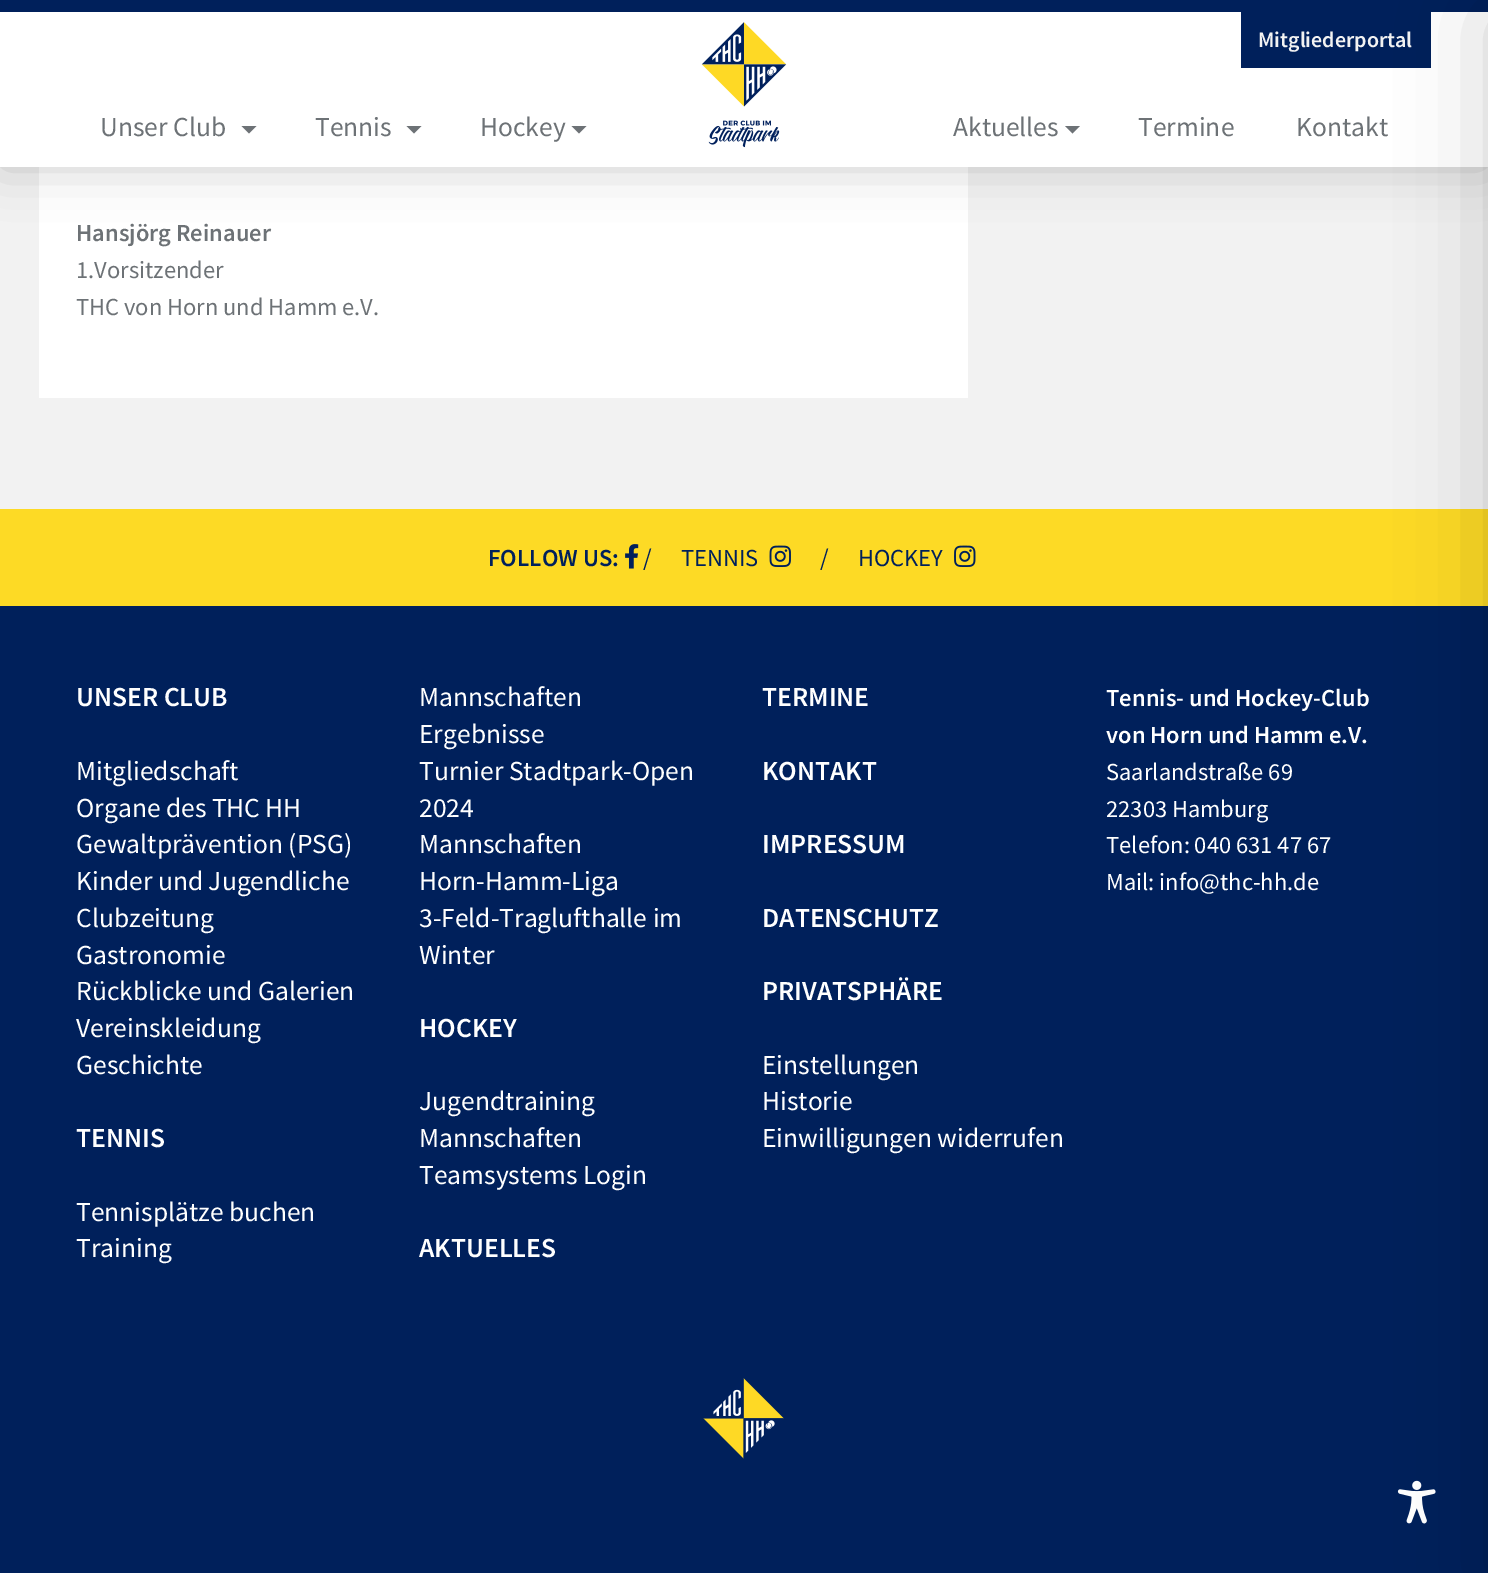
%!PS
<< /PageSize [1488 1573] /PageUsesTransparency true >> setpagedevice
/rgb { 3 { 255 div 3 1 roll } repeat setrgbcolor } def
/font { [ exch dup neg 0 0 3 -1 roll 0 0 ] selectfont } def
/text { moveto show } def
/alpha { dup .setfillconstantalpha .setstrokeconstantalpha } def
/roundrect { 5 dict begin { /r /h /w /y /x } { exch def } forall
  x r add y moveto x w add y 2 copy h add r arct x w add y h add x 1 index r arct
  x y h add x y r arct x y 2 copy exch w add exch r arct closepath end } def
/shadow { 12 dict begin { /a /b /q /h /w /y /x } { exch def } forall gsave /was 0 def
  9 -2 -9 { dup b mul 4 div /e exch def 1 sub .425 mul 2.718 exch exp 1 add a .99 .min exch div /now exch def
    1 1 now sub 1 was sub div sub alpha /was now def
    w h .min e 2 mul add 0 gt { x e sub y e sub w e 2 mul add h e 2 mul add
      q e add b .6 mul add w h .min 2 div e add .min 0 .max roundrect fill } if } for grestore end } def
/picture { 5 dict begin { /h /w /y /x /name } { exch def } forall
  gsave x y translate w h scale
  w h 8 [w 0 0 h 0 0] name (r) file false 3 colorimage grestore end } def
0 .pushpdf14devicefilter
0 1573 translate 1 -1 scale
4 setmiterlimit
242 242 242 rgb
0 0 1488 1573 rectfill
255 255 255 rgb
39 167 929 231 rectfill
0 0 0 rgb
0 0 1488 167 0 24.5 0.2 shadow
255 255 255 rgb
0 12 1488 155 rectfill
0 32 91 rgb
0 0 1488 12 rectfill
(img_01.rgb) 701 22 86 126 picture
109 114 118 rgb
241.5 126 moveto 15 0 rlineto -7.5 7.5 rlineto closepath fill
406.5 126 moveto 15 0 rlineto -7.5 7.5 rlineto closepath fill
571.5 126 moveto 15 0 rlineto -7.5 7.5 rlineto closepath fill
0 32 91 rgb
1241 12 190 56 rectfill
109 114 118 rgb
1065 126 moveto 15 0 rlineto -7.5 7.5 rlineto closepath fill
253 218 37 rgb
0 509 1488 97 rectfill
0 32 91 rgb
0 606 1488 967 rectfill
(img_06.rgb) 1397 1480 39 44 picture
0 0 0 rgb
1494 15 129 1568 0 45 0.2 shadow
(img_02.rgb) 625 544 14 25 picture
(img_03.rgb) 769 545 22 22 picture
(img_04.rgb) 954 545 22 22 picture
(img_05.rgb) 703 1378 81 81 picture
/SourceSansPro-Regular 27.5 font
109 114 118 rgb
(Unser Club) 100 136 text
(Tennis) 315 136 text
(Hockey) 480 136 text
/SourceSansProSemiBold-SemiBold 22 font
242 242 242 rgb
(Mitgliederportal) 1258 47 text
/SourceSansPro-Regular 27.5 font
109 114 118 rgb
(Aktuelles) 953 136 text
(Termine) 1138 136 text
(Kontakt) 1296 136 text
/SourceSansProSemiBold-SemiBold 24.5 font
(Hansjörg Reinauer) 76 241 text
/SourceSansPro-Regular 24.5 font
(1.Vorsitzender) 76 278 text
(THC von Horn und Hamm e.V.) 76 315 text
/SourceSansProSemiBold-SemiBold 24.5 font
0 32 91 rgb
(FOLLOW US:) 488 566 text
/SourceSansPro-Regular 24.5 font
(/) 643 566 text
(TENNIS) 681 566 text
(/) 820 566 text
(HOCKEY) 858 566 text
/SourceSansPro-Regular 27.5 font
255 255 255 rgb
(Mannschaften) 419 706 text
(Ergebnisse) 419 743 text
(Turnier Stadtpark-Open) 419 780 text
(2024) 419 817 text
(Mannschaften) 419 853 text
(Horn-Hamm-Liga) 419 890 text
(3-Feld-Traglufthalle im) 419 927 text
(Winter) 419 964 text
(Tennisplätze buchen) 76 1221 text
(Training) 76 1257 text
/SourceSansProSemiBold-SemiBold 27.5 font
(TENNIS) 76 1147 text
(UNSER CLUB) 76 706 text
/SourceSansPro-Regular 27.5 font
(Mitgliedschaft) 76 780 text
(Organe des THC HH) 76 817 text
(Gewaltprävention \(PSG\)) 76 853 text
(Kinder und Jugendliche) 76 890 text
(Clubzeitung) 76 927 text
(Gastronomie) 76 964 text
(Rückblicke und Galerien) 76 1000 text
(Vereinskleidung) 76 1037 text
(Geschichte) 76 1074 text
/SourceSansProSemiBold-SemiBold 27.5 font
(TERMINE) 762 706 text
(KONTAKT) 762 780 text
(IMPRESSUM) 762 853 text
(DATENSCHUTZ) 762 927 text
(HOCKEY) 419 1037 text
/SourceSansPro-Regular 27.5 font
(Jugendtraining) 419 1110 text
(Mannschaften) 419 1147 text
(Teamsystems Login) 419 1184 text
/SourceSansProSemiBold-SemiBold 27.5 font
(PRIVATSPHÄRE) 762 1000 text
/SourceSansPro-Regular 27.5 font
(Einstellungen) 762 1074 text
(Historie) 762 1110 text
(Einwilligungen widerrufen) 762 1147 text
/SourceSansProSemiBold-SemiBold 27.5 font
(AKTUELLES) 419 1257 text
/SourceSansProSemiBold-SemiBold 24.5 font
(Tennis- und Hockey-Club) 1106 706 text
(von Horn und Hamm e.V.) 1106 743 text
/SourceSansPro-Regular 24.5 font
(Saarlandstraße 69) 1106 780 text
(22303 Hamburg) 1106 817 text
(Telefon: 040 631 47 67) 1106 853 text
(Mail: info@thc-hh.de) 1106 890 text
.poppdf14devicefilter showpage
